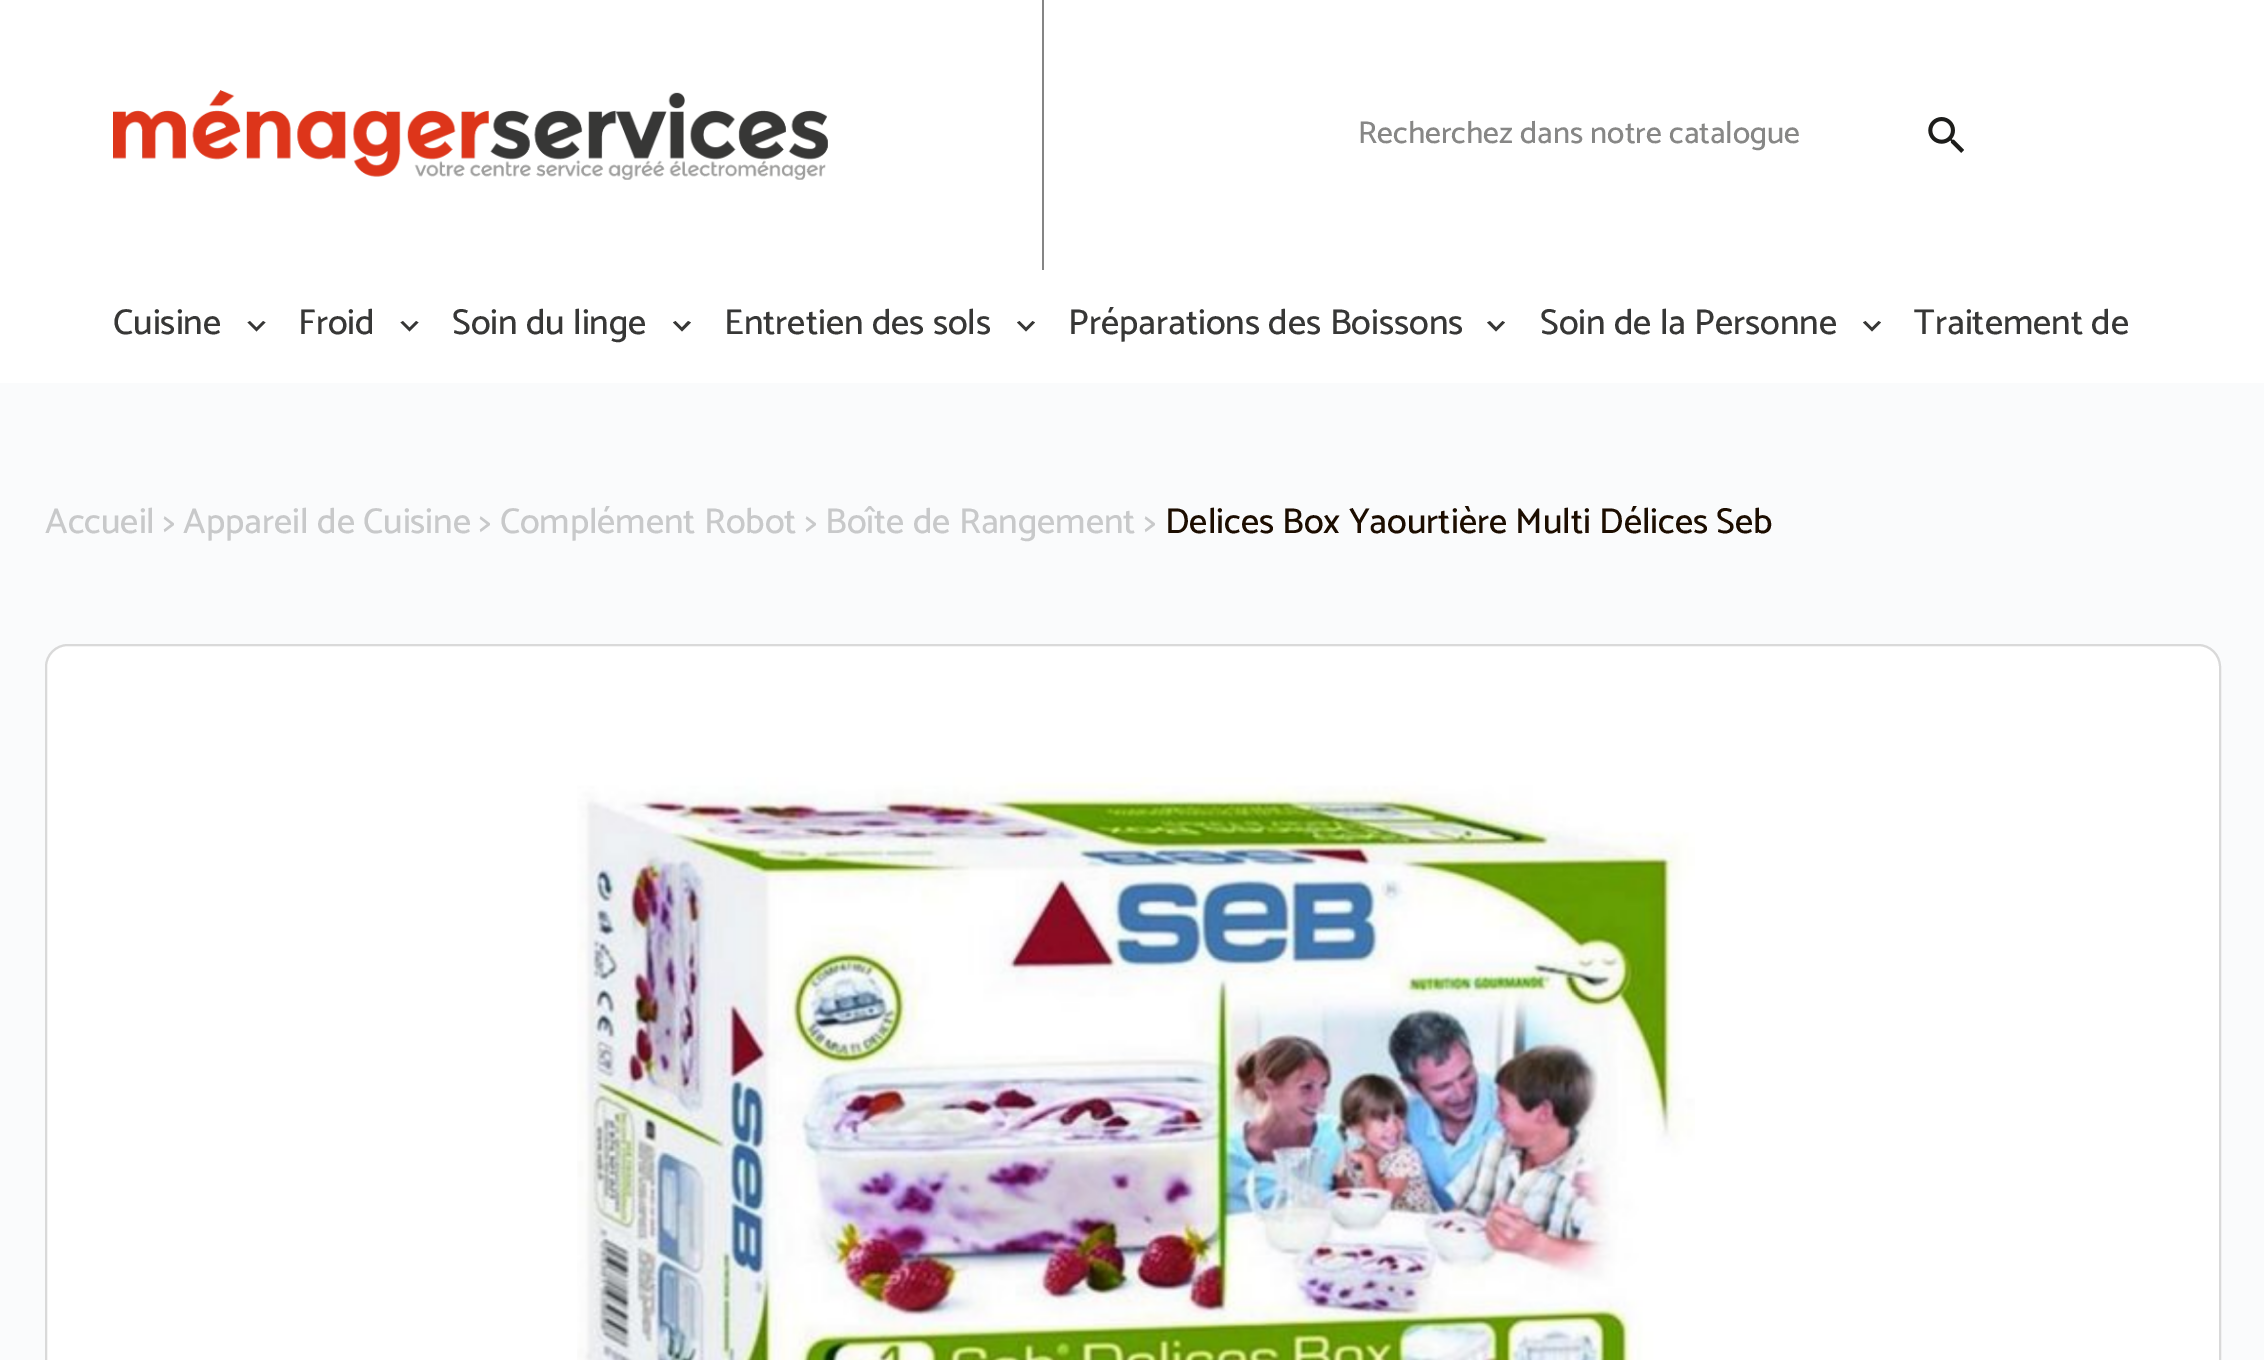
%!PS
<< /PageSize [2264 1360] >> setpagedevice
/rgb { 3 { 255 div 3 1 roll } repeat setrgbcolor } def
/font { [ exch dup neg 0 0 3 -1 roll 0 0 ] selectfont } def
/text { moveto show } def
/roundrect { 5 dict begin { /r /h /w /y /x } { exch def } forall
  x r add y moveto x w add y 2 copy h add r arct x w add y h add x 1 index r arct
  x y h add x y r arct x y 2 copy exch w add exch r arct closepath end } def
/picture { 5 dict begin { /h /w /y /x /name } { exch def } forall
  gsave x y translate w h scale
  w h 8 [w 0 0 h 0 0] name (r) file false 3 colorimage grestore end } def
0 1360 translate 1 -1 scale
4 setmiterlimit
250 251 252 rgb
0 0 2264 1360 rectfill
255 255 255 rgb
0 0 2264 383 rectfill
(img_01.rgb) 113 90 715 90 picture
133 133 133 rgb
1042 0 2 270 rectfill
(img_02.rgb) 1928 117 36 36 picture
55 55 54 rgb
250 321 moveto 6.5 6.5 rlineto 6.5 -6.5 rlineto 2.5 1.5 rlineto -9 9 rlineto -9 -9 rlineto closepath fill
403 321 moveto 6.5 6.5 rlineto 6.5 -6.5 rlineto 2.5 1.5 rlineto -9 9 rlineto -9 -9 rlineto closepath fill
675.5 321 moveto 6.5 6.5 rlineto 6 -6.5 rlineto 3 1.5 rlineto -9 9 rlineto -9 -9 rlineto closepath fill
1019.5 321 moveto 6.5 6.5 rlineto 6.5 -6.5 rlineto 2.5 1.5 rlineto -9 9 rlineto -9 -9 rlineto closepath fill
1490 321 moveto 6 6.5 rlineto 6.5 -6.5 rlineto 2.5 1.5 rlineto -9 9 rlineto -9 -9 rlineto closepath fill
1865.5 321 moveto 6.5 6.5 rlineto 6.5 -6.5 rlineto 2.5 1.5 rlineto -9 9 rlineto -9 -9 rlineto closepath fill
255 255 255 rgb
46 645 2174 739 22 roundrect gsave fill grestore
217 217 217 rgb
2 setlinewidth
stroke
(img_03.rgb) 577 777 1118 583 picture
/Catamaran-Thin 31.5 font
135 135 134 rgb
(Recherchez dans notre catalogue) 1358 143 text
/Catamaran-Thin 36 font
55 55 54 rgb
(Cuisine) 113 334 text
(Froid) 298 334 text
(Soin du linge) 452 334 text
(Entretien des sols) 724 334 text
(Préparations des Boissons) 1068 334 text
(Soin de la Personne) 1540 334 text
(Traitement de) 1914 334 text
200 201 202 rgb
(Accueil > Appareil de Cuisine > Complément Robot > Boîte de Rangement >) 45 533 text
28 13 0 rgb
(Delices Box Yaourtière Multi Délices Seb) 1165 533 text
showpage
